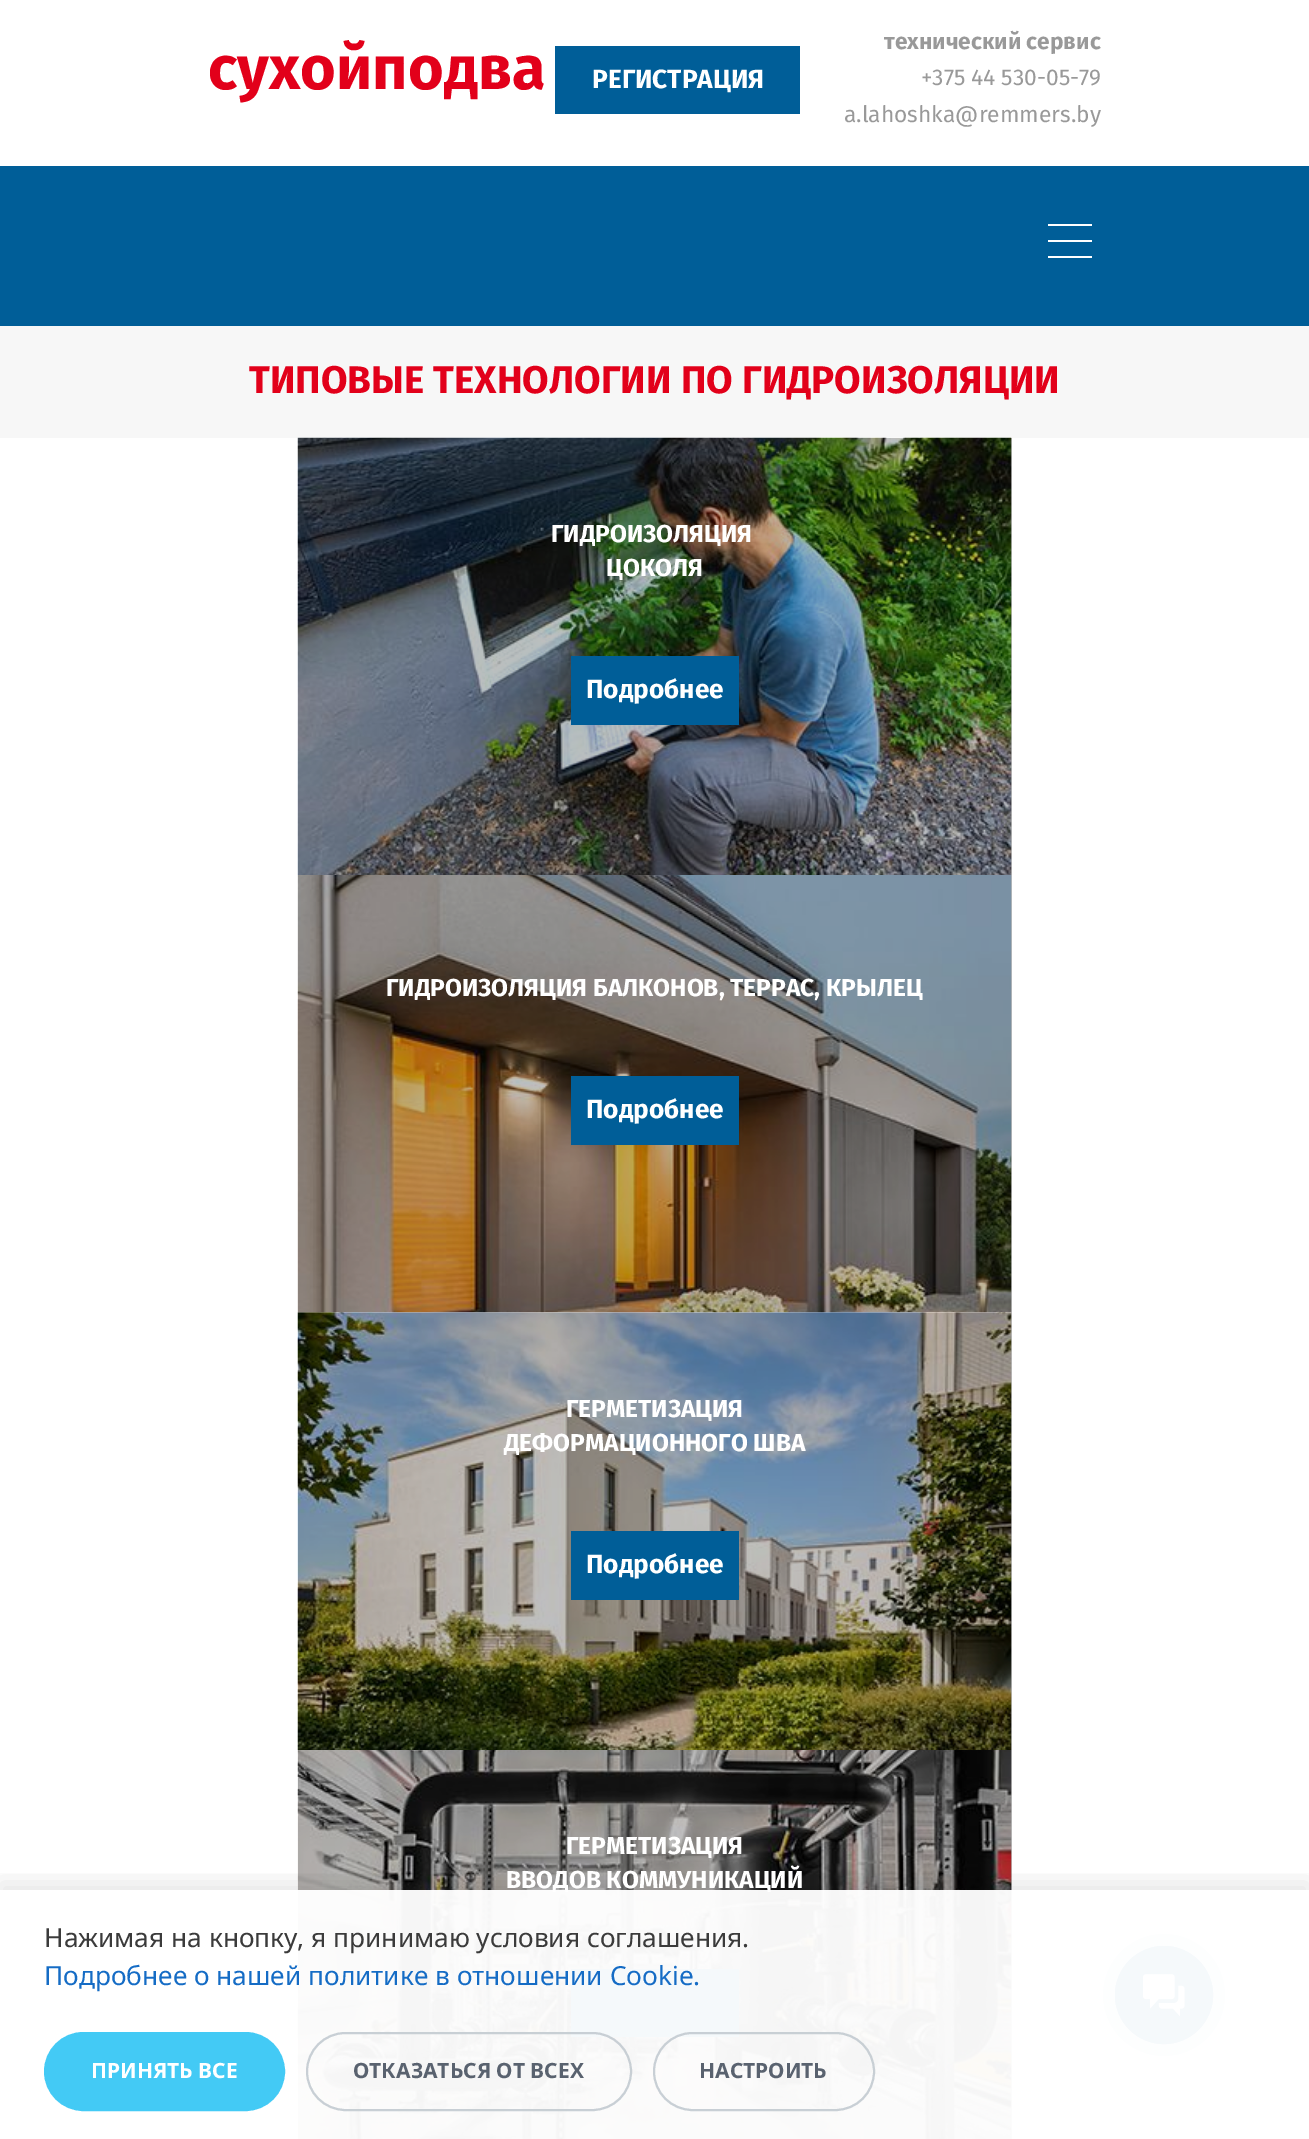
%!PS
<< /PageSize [1309 2139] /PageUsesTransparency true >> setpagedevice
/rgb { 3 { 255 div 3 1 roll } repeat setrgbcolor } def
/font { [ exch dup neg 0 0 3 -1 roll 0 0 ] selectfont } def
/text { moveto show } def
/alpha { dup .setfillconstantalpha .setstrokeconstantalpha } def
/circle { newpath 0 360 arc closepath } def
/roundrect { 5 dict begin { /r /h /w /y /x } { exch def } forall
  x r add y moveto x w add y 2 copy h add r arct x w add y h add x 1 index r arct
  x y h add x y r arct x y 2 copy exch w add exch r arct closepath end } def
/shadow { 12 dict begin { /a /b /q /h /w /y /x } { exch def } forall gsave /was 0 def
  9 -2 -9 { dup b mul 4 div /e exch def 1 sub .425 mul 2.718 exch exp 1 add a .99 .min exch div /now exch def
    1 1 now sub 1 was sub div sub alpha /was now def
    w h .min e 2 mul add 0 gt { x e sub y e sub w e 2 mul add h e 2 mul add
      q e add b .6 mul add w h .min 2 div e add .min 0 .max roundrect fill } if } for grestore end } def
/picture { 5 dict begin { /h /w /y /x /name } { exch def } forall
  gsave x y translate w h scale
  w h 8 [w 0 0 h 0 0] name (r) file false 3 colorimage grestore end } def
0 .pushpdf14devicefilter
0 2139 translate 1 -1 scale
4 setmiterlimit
255 255 255 rgb
0 0 1309 2139 rectfill
191 191 191 rgb
1011 1313 1 826 rectfill
298 875 714 438 rectfill
1011 438 1 437 rectfill
0 94 152 rgb
555 46 245 68 rectfill
0 166 1309 160 rectfill
255 255 255 rgb
1048 224 44 2 rectfill
1048 240 44 2 rectfill
1048 256 44 2 rectfill
247 247 247 rgb
0 326 1309 112 rectfill
(img_01.rgb) 297 437 715 438 picture
0 94 152 rgb
571 656 168 69 rectfill
(img_02.rgb) 297 875 715 438 picture
571 1076 168 69 rectfill
(img_03.rgb) 297 1312 715 438 picture
571 1531 168 69 rectfill
(img_04.rgb) 297 1750 715 389 picture
571 1969 168 68 rectfill
204 223 234 rgb
1164 1995 61 circle fill
0 94 152 rgb
1164 1995 48.5 circle stroke
1164 1995 49 circle fill
(img_05.rgb) 1143 1974 42 42 picture
gsave
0 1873 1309 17 rectclip
0 0 0 rgb
0 1883 1309 250 0 12 0.1 shadow
grestore
67 202 245 rgb
45 2033 239 77 38.5 roundrect gsave fill grestore
2 setlinewidth
stroke
/FiraSans-Bold 61.25 font
226 0 26 rgb
(сухойподва) 208 89 text
/FiraSans-Bold 26.25 font
255 255 255 rgb
(РЕГИСТРАЦИЯ) 592 88 text
/FiraSans-Bold 22.75 font
153 153 153 rgb
(технический сервис) 884 49 text
/FiraSans-Regular 22.75 font
(+375 44 530-05-79) 921 85 text
(a.lahoshka@remmers.by) 844 122 text
/FiraSans-Bold 38.5 font
226 0 26 rgb
(ТИПОВЫЕ ТЕХНОЛОГИИ ПО ГИДРОИЗОЛЯЦИИ) 249 393 text
/FiraSans-Bold 24.5 font
255 255 255 rgb
(ГИДРОИЗОЛЯЦИЯ) 551 542 text
(ЦОКОЛЯ) 606 576 text
/FiraSans-Bold 26.25 font
(Подробнее) 586 698 text
/FiraSans-Bold 24.5 font
(ГИДРОИЗОЛЯЦИЯ БАЛКОНОВ, ТЕРРАС, КРЫЛЕЦ) 386 996 text
/FiraSans-Bold 26.25 font
(Подробнее) 586 1118 text
/FiraSans-Bold 24.5 font
(ГЕРМЕТИЗАЦИЯ) 566 1417 text
(ДЕФОРМАЦИОННОГО ШВА) 504 1451 text
/FiraSans-Bold 26.25 font
(Подробнее) 586 1573 text
/FiraSans-Bold 24.5 font
(ГЕРМЕТИЗАЦИЯ) 566 1854 text
(ВВОДОВ КОММУНИКАЦИЙ) 506 1888 text
0.96 alpha
297 1890 928 249 rectfill
/NotoSans-Regular 26.25 font
1 alpha
59 59 59 rgb
(Нажимая на кнопку, я принимаю условия соглашения.) 44 1947 text
21 108 197 rgb
(Подробнее о нашей политике в отношении Cookie.) 44 1985 text
/NotoSans-Bold 21 font
255 255 255 rgb
(ПРИНЯТЬ ВСЕ) 91 2078 text
0.96 alpha
198 205 211 rgb
307 2033 324 77 38.5 roundrect stroke
1 alpha
89 98 111 rgb
(ОТКАЗАТЬСЯ ОТ ВСЕХ) 353 2078 text
0.96 alpha
198 205 211 rgb
654 2033 220 77 38.5 roundrect stroke
1 alpha
89 98 111 rgb
(НАСТРОИТЬ) 699 2078 text
.poppdf14devicefilter showpage
